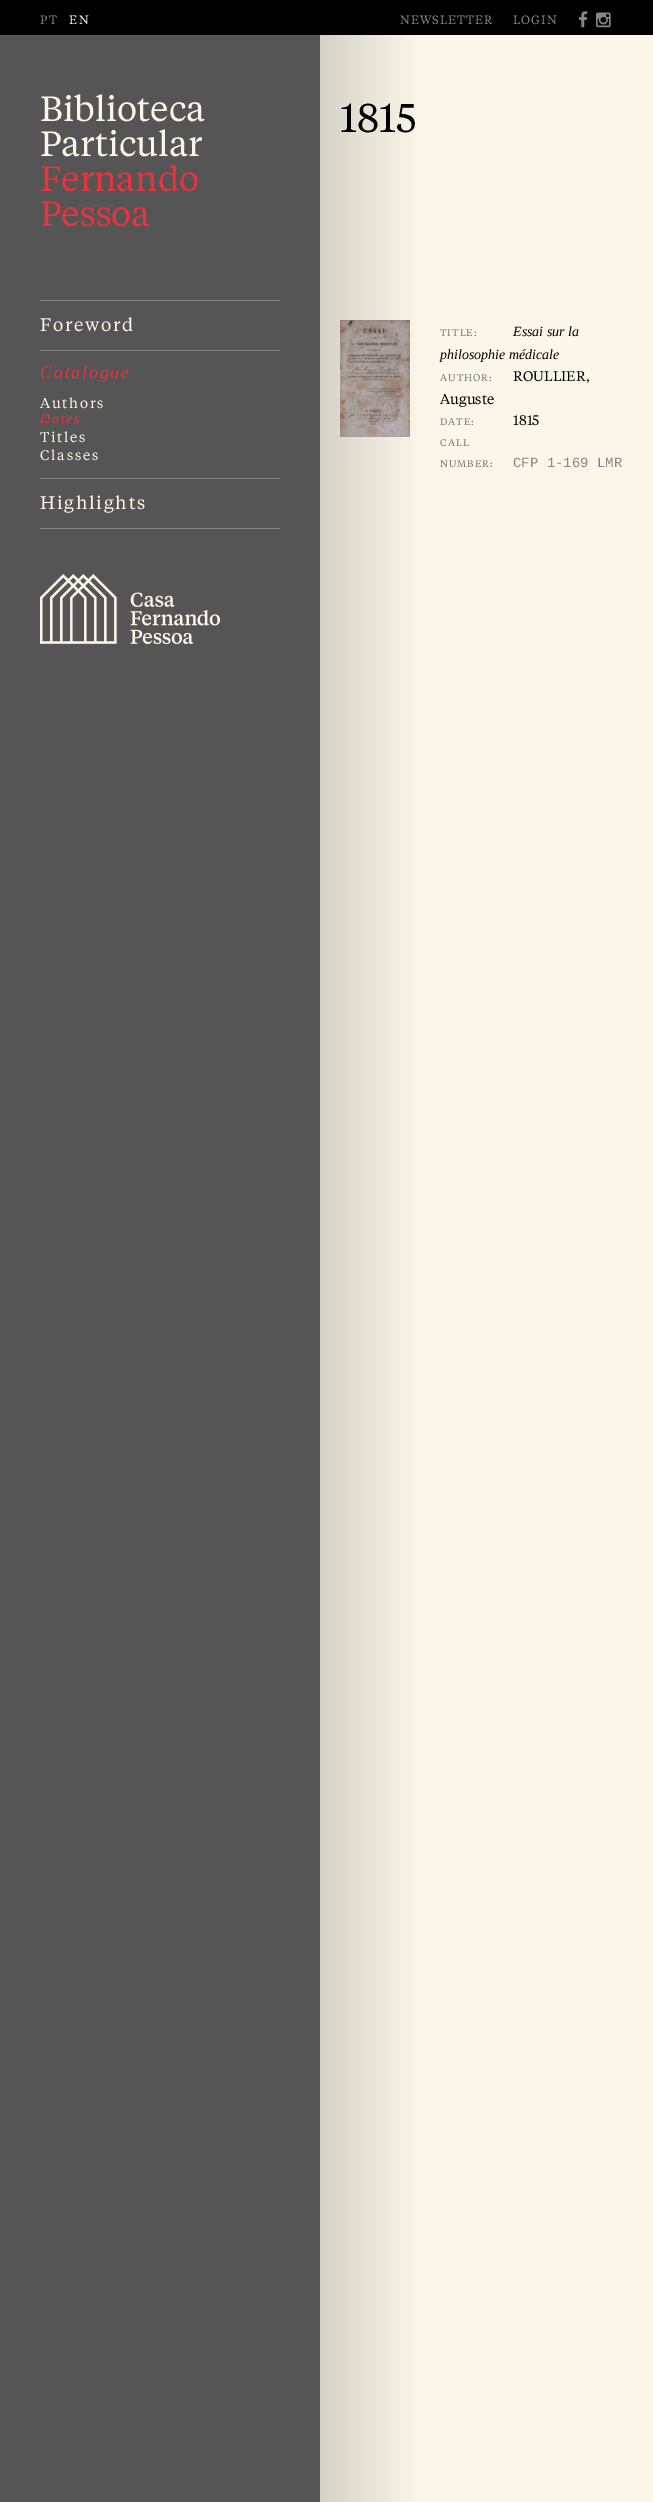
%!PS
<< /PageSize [653 2502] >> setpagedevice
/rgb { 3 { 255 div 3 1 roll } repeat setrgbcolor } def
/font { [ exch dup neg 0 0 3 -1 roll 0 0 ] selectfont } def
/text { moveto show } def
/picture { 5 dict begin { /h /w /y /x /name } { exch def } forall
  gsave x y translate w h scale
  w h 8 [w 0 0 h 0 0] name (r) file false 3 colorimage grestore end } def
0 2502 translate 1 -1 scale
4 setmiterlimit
0 0 0 rgb
0 0 653 2502 rectfill
(img_01.rgb) 578 11 10 17 picture
(img_02.rgb) 596 12 15 16 picture
251 246 232 rgb
420 35 233 2467 rectfill
gsave 320 35 moveto 100 0 rlineto 0 2467 rlineto -100 0 rlineto closepath clip newpath
<< /ShadingType 2 /ColorSpace /DeviceRGB /Coords [320 1286 420 1286] /Extend [true true] /Function << /FunctionType 2 /Domain [0 1] /C0 [0.839 0.824 0.78] /C1 [0.984 0.965 0.91] /N 1 >> >> shfill grestore
85 85 85 rgb
0 35 320 2467 rectfill
135 133 129 rgb
40 300 240 1 rectfill
40 350 240 1 rectfill
40 478 240 1 rectfill
40 528 240 1 rectfill
(img_03.rgb) 40 574 180 70 picture
(img_04.rgb) 340 320 70 117 picture
/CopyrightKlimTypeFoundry-Regular 12 font
136 136 136 rgb
40 24 moveto 2 0 (PT) ashow
255 255 255 rgb
69 24 moveto 2 0 (EN) ashow
136 136 136 rgb
400 24 moveto 1 0 (NEWSLETTER) ashow
513 24 moveto 1 0 (LOGIN) ashow
/CopyrightKlimTypeFoundry-Regular 35 font
251 246 232 rgb
(Biblioteca) 40 121 text
(Particular) 40 156 text
231 52 63 rgb
(Fernando) 40 191 text
(Pessoa) 40 226 text
/CopyrightKlimTypeFoundry-Regular 18 font
251 246 232 rgb
40 331 moveto 1.75 0 (Foreword) ashow
/LiberationSerif-Italic 18 font
231 52 63 rgb
40 378 moveto 1.75 0 (Catalogue) ashow
/CopyrightKlimTypeFoundry-Regular 14 font
251 246 232 rgb
40 408 moveto 1.75 0 (Authors) ashow
/LiberationSerif-Italic 14 font
231 52 63 rgb
40 423 moveto 1.75 0 (Dates) ashow
/CopyrightKlimTypeFoundry-Regular 14 font
251 246 232 rgb
40 442 moveto 1.75 0 (Titles) ashow
40 460 moveto 1.75 0 (Classes) ashow
/CopyrightKlimTypeFoundry-Regular 18 font
40 509 moveto 1.75 0 (Highlights) ashow
/CopyrightKlimTypeFoundry-Regular 40 font
0 0 0 rgb
(1815) 340 132 text
/CopyrightKlimTypeFoundry-Regular 9.75 font
119 119 119 rgb
440 336 moveto 1 0 (TITLE:) ashow
/LiberationSerif-Italic 14 font
0 0 0 rgb
(Essai sur la) 513 336 text
(philosophie médicale) 440 359 text
/CopyrightKlimTypeFoundry-Regular 9.75 font
119 119 119 rgb
440 381 moveto 1 0 (AUTHOR:) ashow
/CopyrightKlimTypeFoundry-Regular 14 font
0 0 0 rgb
(ROULLIER,) 513 381 text
(Auguste) 440 404 text
/CopyrightKlimTypeFoundry-Regular 9.75 font
119 119 119 rgb
440 425 moveto 1 0 (DATE:) ashow
/CopyrightKlimTypeFoundry-Regular 14 font
0 0 0 rgb
(1815) 513 425 text
/CopyrightKlimTypeFoundry-Regular 9.75 font
119 119 119 rgb
440 446 moveto 1 0 (CALL) ashow
440 467 moveto 1 0 (NUMBER:) ashow
/LiberationMono-Regular 14 font
136 136 136 rgb
(CFP 1-169 LMR) 513 467 text
showpage
